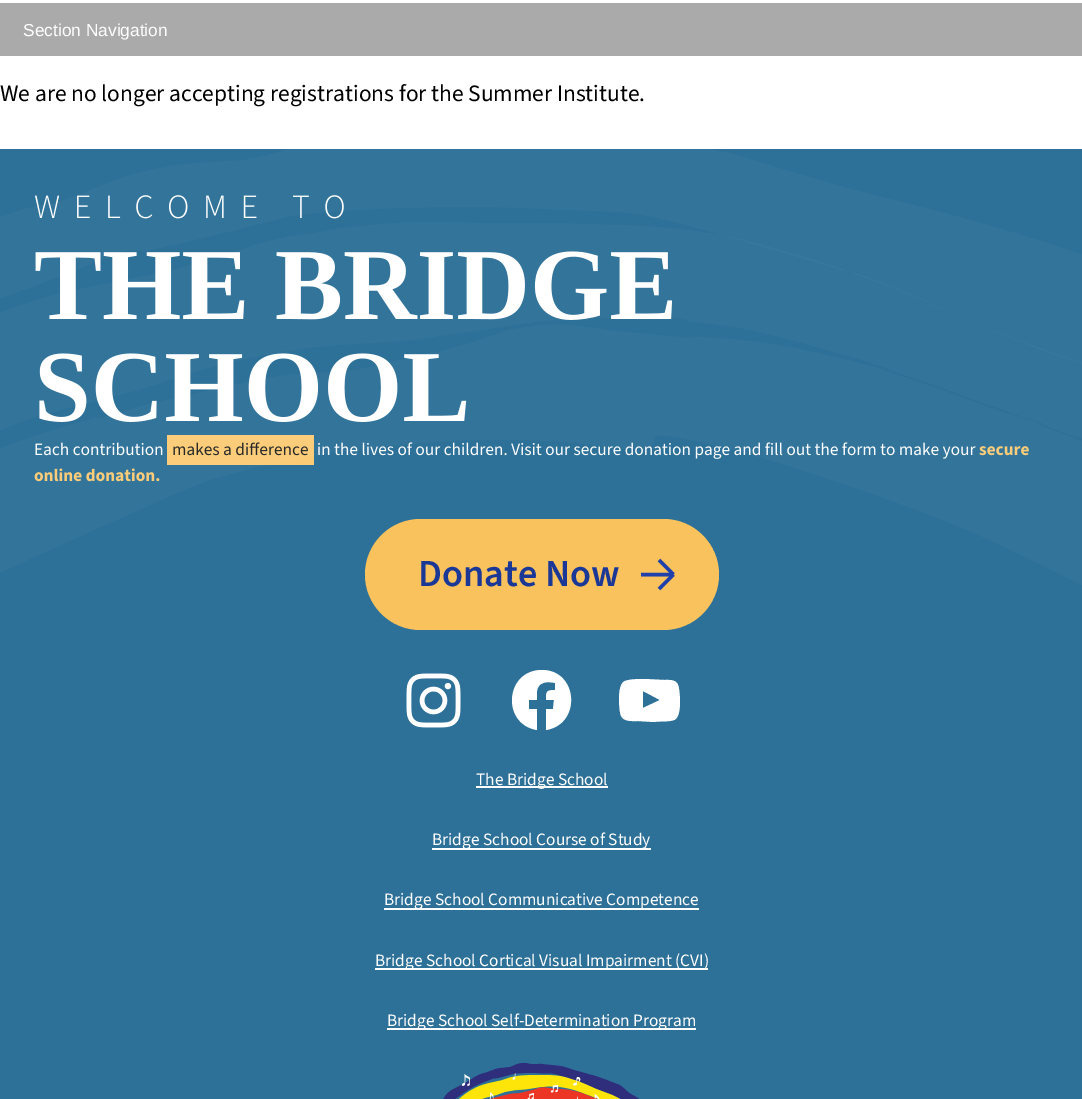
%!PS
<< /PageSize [1082 1099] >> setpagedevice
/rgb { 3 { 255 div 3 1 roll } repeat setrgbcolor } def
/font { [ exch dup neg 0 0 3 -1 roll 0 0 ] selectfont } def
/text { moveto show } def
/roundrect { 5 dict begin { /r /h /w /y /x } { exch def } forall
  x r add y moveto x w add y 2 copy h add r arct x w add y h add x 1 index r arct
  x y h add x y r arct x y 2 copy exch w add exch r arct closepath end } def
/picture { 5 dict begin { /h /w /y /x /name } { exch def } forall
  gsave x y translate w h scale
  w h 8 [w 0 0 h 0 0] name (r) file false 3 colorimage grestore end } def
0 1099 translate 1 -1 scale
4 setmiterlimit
255 255 255 rgb
0 0 1082 1099 rectfill
170 170 170 rgb
0 3 1082 53 rectfill
45 112 152 rgb
0 149 1082 950 rectfill
251 203 117 rgb
167 435 147 30 rectfill
(img_02.rgb) 406 673 55 55 picture
255 255 255 rgb
542 670 moveto -37 0 -41 54 -5 60 rcurveto 0 -21 rlineto -8 0 rlineto 0 -9 rlineto 8 0 rlineto 0 -9 rlineto 1 -9 10 -10 18 -8 rcurveto 0 7 rlineto -9 0 -9 2 -9 10 rcurveto 8 0 rlineto -1 9 rlineto -7 0 rlineto 0 21 rlineto 36 -6 32 -60 -4 -60 rcurveto closepath fill
679 689 moveto -1 -10 -8 -9 -15 -9 rcurveto -19 -1 rlineto -5 0 -15 0 -20 2 rcurveto -8 3 -6 25 -5 31 rcurveto 1 10 10 9 18 9 rcurveto 16 1 rlineto 5 -1 15 0 20 -2 rcurveto 8 -3 6 -25 5 -31 rcurveto closepath 643 708 moveto 0 -17 rlineto 17 9 rlineto closepath fill
476 786 132 2 rectfill
432 848 219 2 rectfill
384 908 315 2 rectfill
375 968 333 2 rectfill
387 1028 309 2 rectfill
(img_03.rgb) 443 1063 197 36 picture
/LiberationSans-Regular 17.35 font
(Section Navigation) 23 36 text
/SourceSans3-Regular 23.45 font
0 0 0 rgb
(We are no longer accepting registrations for the Summer Institute.) 0 101 text
/SourceSans3-Light 34 font
255 255 255 rgb
34 218 moveto 13.5 0 (WELCOME TO) ashow
/LiberationSerif-Bold 102 font
(THE BRIDGE) 34 319 text
(SCHOOL) 34 421 text
/SourceSans3-Regular 17.35 font
(Each contribution) 34 455 text
34 34 34 rgb
(makes a difference) 172 455 text
255 255 255 rgb
(in the lives of our children. Visit our secure donation page and fill out the form to make your) 317 455 text
/SourceSans3-Bold 17.35 font
251 203 117 rgb
(secure) 979 455 text
(online donation.) 34 481 text
(img_01.rgb) 0 149 1082 436 picture
250 194 92 rgb
365 519 354 111 55.5 roundrect fill
/SourceSans3-SemiBold 38.25 font
28 56 151 rgb
(Donate Now) 418 586 text
gsave
641 558 37 33 rectclip
32 64 172 rgb
3.5 setlinewidth
659 560 moveto 14.5 14.5 rlineto 673.5 574.5 moveto -14.5 14.5 rlineto 673.5 574.5 moveto -33 0 rlineto stroke
grestore
/SourceSans3-Regular 17.35 font
255 255 255 rgb
(The Bridge School) 476 785 text
(Bridge School Course of Study) 432 845 text
(Bridge School Communicative Competence) 384 905 text
(Bridge School Cortical Visual Impairment \(CVI\)) 375 966 text
(Bridge School Self-Determination Program) 387 1026 text
showpage
